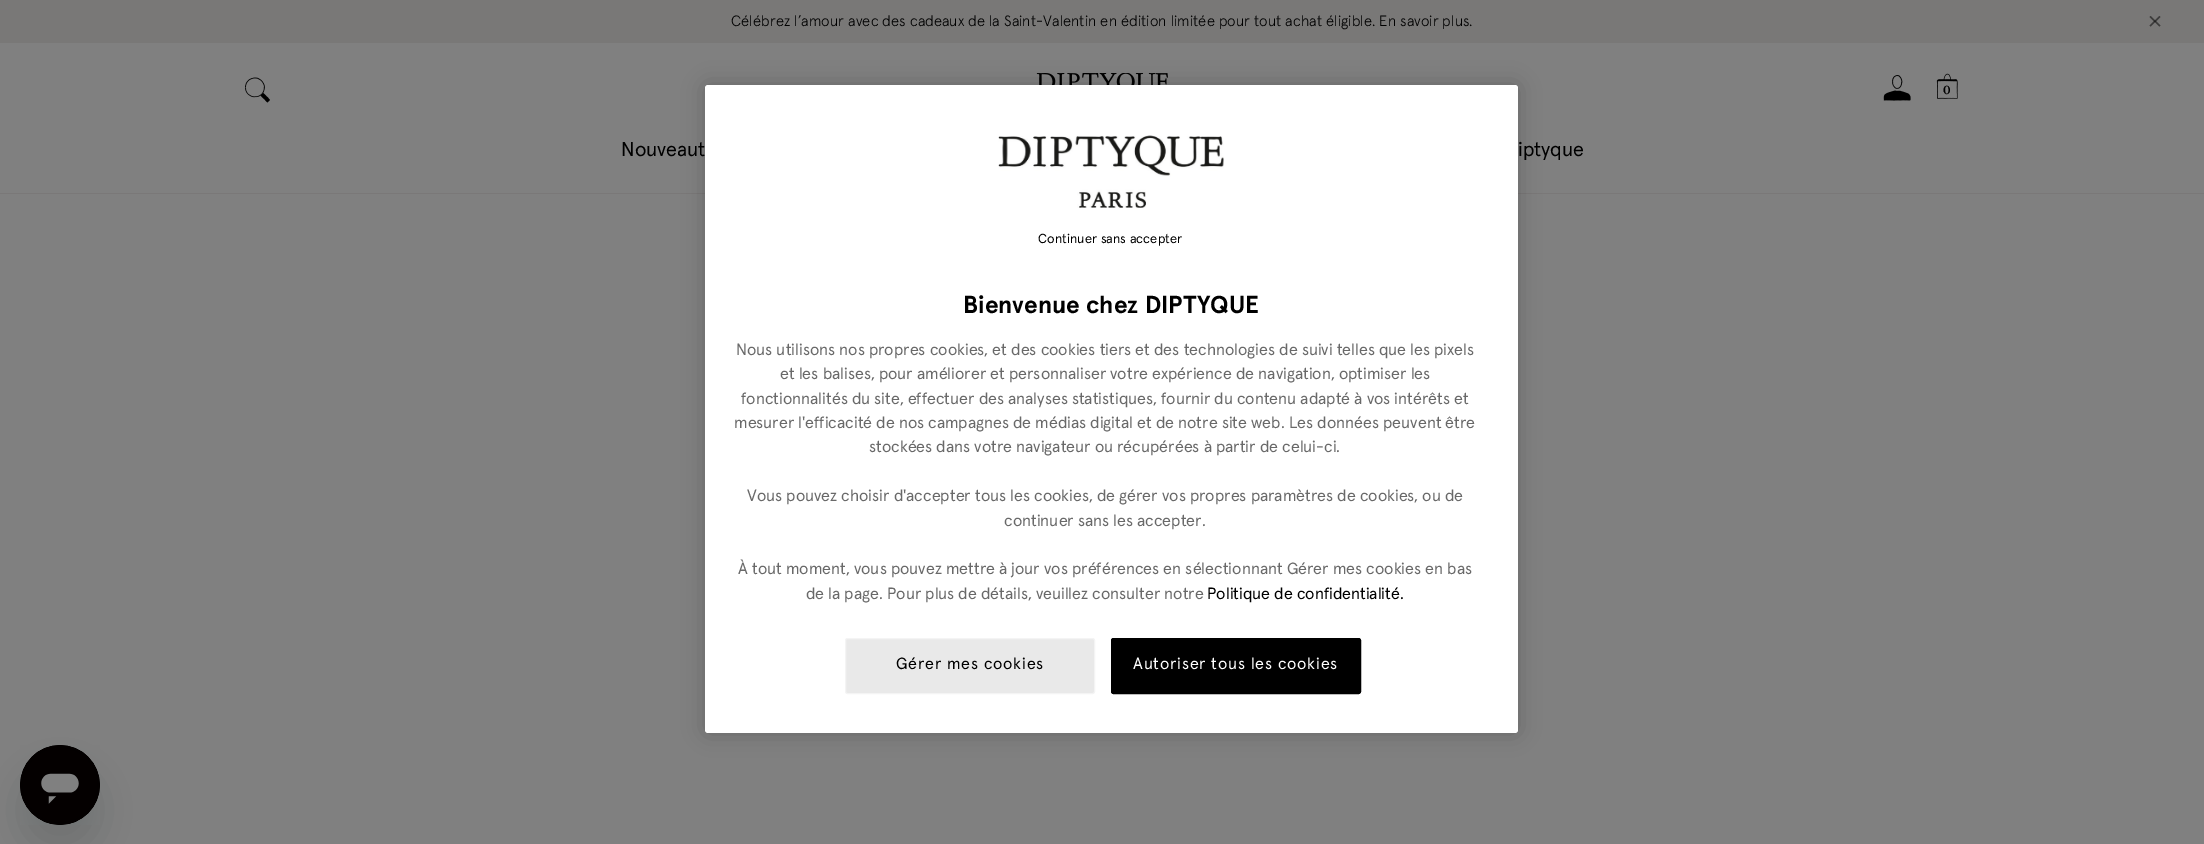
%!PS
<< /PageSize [2204 844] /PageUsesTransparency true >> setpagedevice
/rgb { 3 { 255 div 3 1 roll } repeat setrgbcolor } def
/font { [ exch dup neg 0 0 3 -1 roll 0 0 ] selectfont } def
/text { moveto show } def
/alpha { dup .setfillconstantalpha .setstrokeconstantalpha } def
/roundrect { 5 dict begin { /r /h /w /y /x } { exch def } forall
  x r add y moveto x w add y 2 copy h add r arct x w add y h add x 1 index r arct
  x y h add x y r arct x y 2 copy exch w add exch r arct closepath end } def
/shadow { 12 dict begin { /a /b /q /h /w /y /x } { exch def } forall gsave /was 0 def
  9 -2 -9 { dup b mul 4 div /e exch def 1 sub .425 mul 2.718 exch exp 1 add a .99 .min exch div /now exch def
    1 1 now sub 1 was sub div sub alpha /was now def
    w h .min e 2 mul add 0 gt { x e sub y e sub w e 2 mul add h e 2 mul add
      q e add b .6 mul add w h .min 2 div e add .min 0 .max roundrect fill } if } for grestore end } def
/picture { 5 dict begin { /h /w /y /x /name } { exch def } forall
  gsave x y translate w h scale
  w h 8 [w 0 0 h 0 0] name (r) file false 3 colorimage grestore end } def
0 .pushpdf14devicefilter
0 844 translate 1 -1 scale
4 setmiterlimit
128 128 128 rgb
0 0 2204 844 rectfill
121 120 119 rgb
0 0 2204 43 rectfill
61 60 60 rgb
2159.5 16 moveto 1 1 rlineto -10 9.5 rlineto -1 -1 rlineto closepath fill
0.5 alpha
0 0 0 rgb
2149.5 17 moveto 1 -1 rlineto 10 9.5 rlineto -1 1 rlineto closepath fill
1 alpha
(img_01.rgb) 1036 73 132 12 picture
(img_02.rgb) 245 77 25 26 picture
(img_03.rgb) 1883 75 28 26 picture
(img_04.rgb) 1936 73 22 26 picture
122 120 120 rgb
0 193 2204 1 rectfill
0 0 0 rgb
705 85 813 648 3 11 0.2 shadow
12 37 39 rgb
20 770 80 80 40 19 0.15 shadow
(img_06.rgb) 20 745 80 80 picture
/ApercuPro-Light 15 font
0 0 0 rgb
731 26 moveto 0.12 0 (Célébrez l’amour avec des cadeaux de la Saint-Valentin en édition limitée pour tout achat éligible. En savoir plus.) ashow
/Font-Bold 12 font
(0) 1943 94 text
/ApercuPro-Regular 20 font
(Nouveaut) 621 156 text
(iptyque) 1518 156 text
255 255 255 rgb
705 85 813 648 3 roundrect fill
/ApercuPro-Regular 13.1 font
0 0 0 rgb
1038 243 moveto 0.1 0 (Continuer sans accepter) ashow
(img_05.rgb) 998 135 226 73 picture
/ApercuPro-Bold 24.5 font
(Bienvenue chez DIPTYQUE) 963 313 text
/ApercuPro-Regular 16.25 font
105 105 105 rgb
(Nous utilisons nos propres cookies, et des cookies tiers et des technologies de suivi telles que les pixels) 736 355 text
(et les balises, pour améliorer et personnaliser votre expérience de navigation, optimiser les) 780 379 text
(fonctionnalités du site, effectuer des analyses statistiques, fournir du contenu adapté à vos intérêts et) 741 404 text
(mesurer l'efficacité de nos campagnes de médias digital et de notre site web. Les données peuvent être) 734 428 text
(stockées dans votre navigateur ou récupérées à partir de celui-ci.) 869 452 text
(Vous pouvez choisir d'accepter tous les cookies, de gérer vos propres paramètres de cookies, ou de) 747 501 text
(continuer sans les accepter.) 1004 526 text
(À tout moment, vous pouvez mettre à jour vos préférences en sélectionnant Gérer mes cookies en bas) 738 574 text
(de la page. Pour plus de détails, veuillez consulter notre) 806 599 text
0 0 0 rgb
(Politique de confidentialité.) 1207 599 text
233 233 233 rgb
845.5 638.5 249 55 2 roundrect gsave fill grestore
244 244 244 rgb
stroke
0 0 0 rgb
896 669 moveto 0.8 0 (Gérer mes cookies) ashow
1111.5 638.5 249 55 2 roundrect gsave fill grestore
stroke
255 255 255 rgb
1133 669 moveto 0.8 0 (Autoriser tous les cookies) ashow
.poppdf14devicefilter showpage
